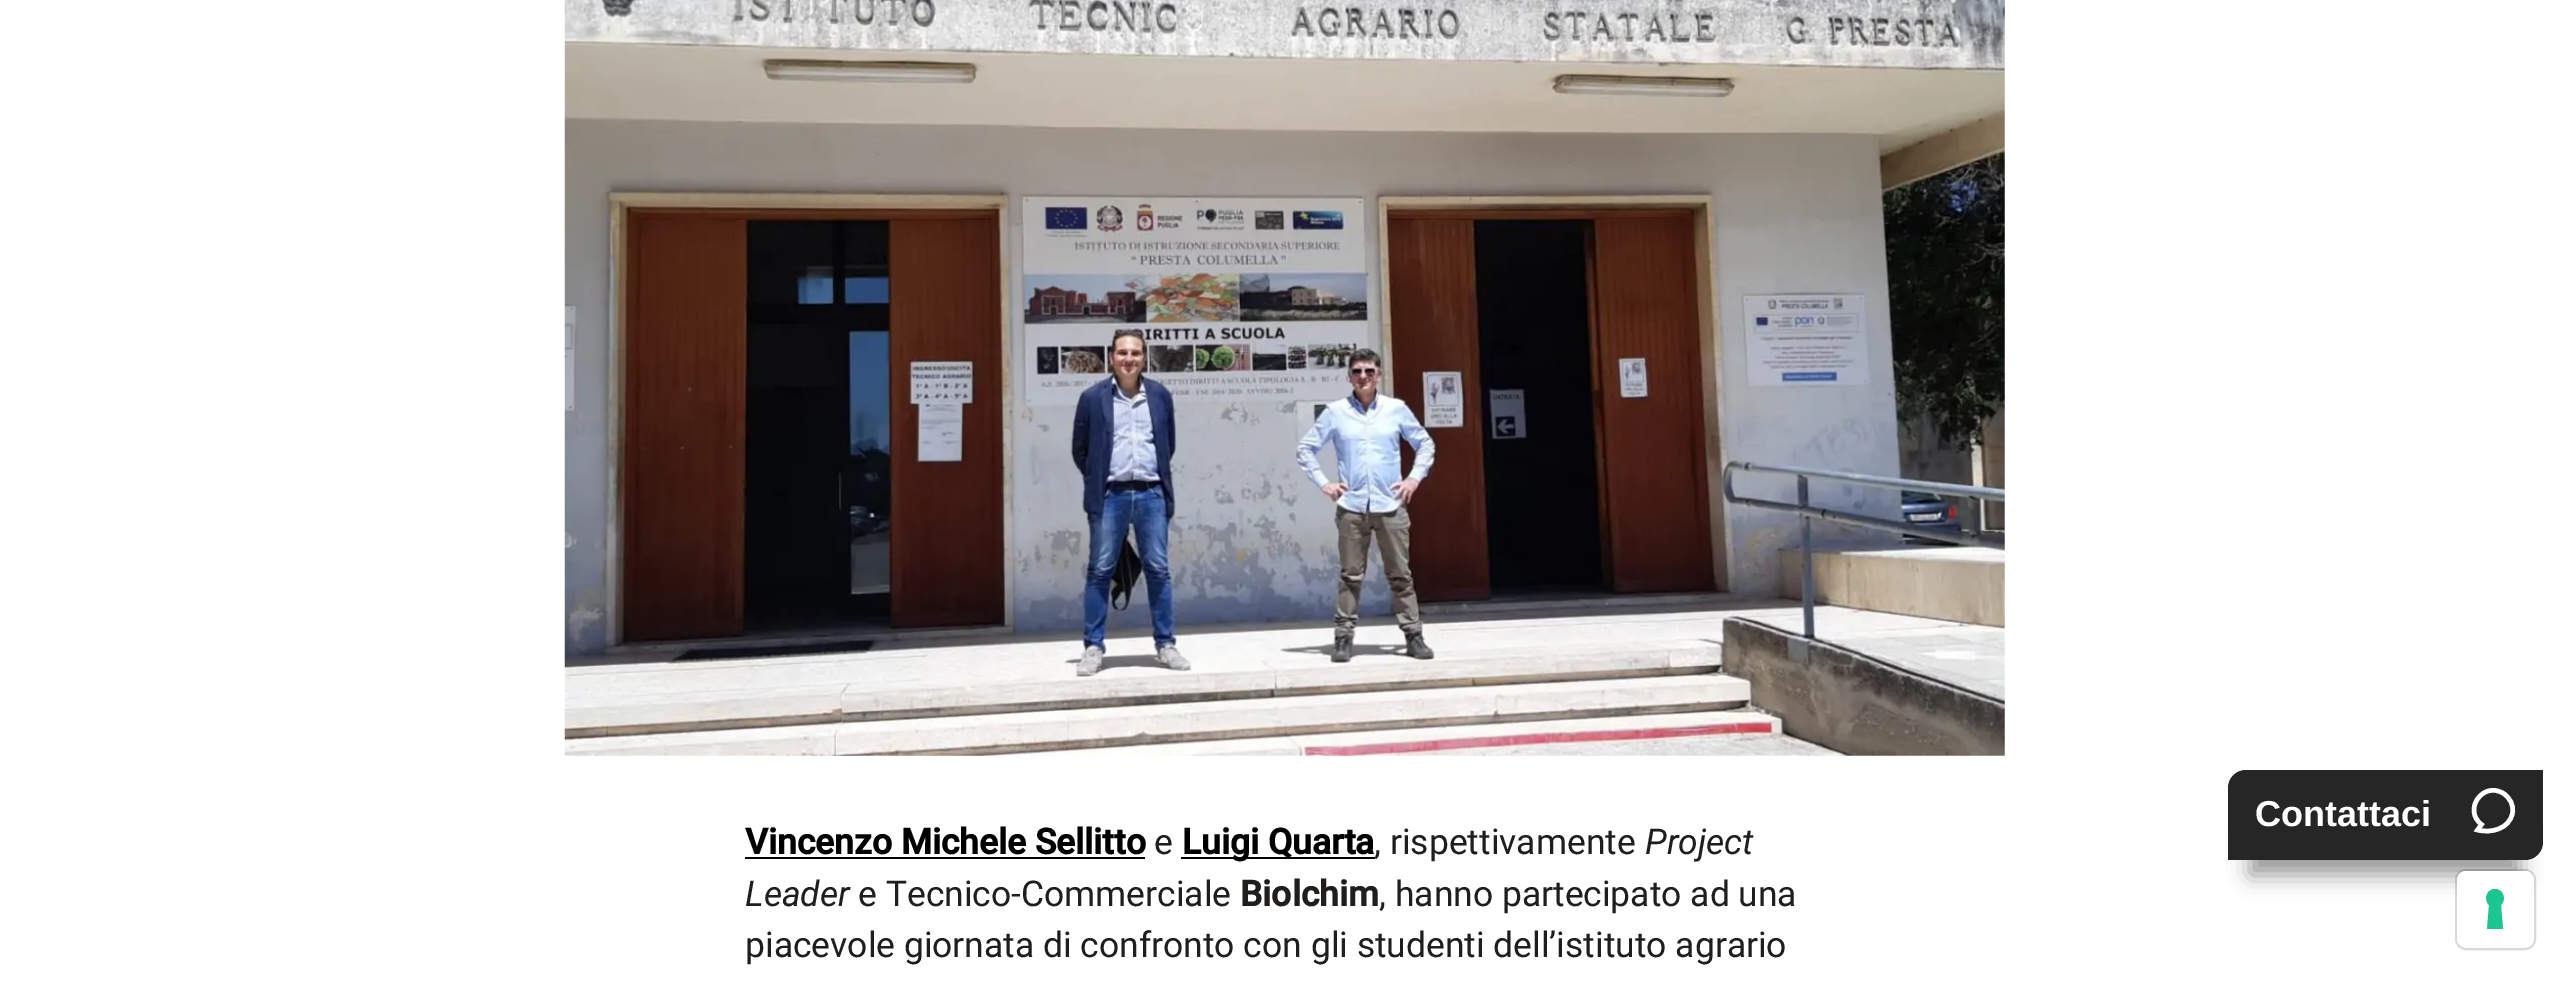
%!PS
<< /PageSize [2569 983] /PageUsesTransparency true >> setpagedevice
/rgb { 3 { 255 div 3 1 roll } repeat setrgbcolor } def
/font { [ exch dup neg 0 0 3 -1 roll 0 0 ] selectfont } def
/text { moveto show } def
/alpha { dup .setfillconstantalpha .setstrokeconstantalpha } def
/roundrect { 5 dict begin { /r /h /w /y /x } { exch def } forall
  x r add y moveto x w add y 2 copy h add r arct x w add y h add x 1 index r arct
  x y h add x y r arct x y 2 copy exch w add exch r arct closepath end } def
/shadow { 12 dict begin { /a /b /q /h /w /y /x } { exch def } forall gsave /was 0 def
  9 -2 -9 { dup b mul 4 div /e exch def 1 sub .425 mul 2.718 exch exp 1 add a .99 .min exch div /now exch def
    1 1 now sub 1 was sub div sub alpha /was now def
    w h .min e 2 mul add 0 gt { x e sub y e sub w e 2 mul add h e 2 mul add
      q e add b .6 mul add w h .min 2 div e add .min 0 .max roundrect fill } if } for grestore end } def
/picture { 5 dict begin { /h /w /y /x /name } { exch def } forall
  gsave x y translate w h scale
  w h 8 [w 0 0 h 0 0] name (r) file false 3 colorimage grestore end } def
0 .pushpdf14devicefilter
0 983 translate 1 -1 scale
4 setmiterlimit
255 255 255 rgb
0 0 2569 983 rectfill
gsave
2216 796 moveto 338 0 rlineto 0 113 rlineto -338 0 rlineto closepath 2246 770 moveto 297 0 rlineto 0 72 rlineto 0 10 -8 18 -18 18 rcurveto -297 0 rlineto 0 -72 rlineto 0 -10 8 -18 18 -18 rcurveto closepath eoclip newpath
0 0 0 rgb
2250 830 270 45 0 11 0.4 shadow
grestore
0.85 alpha
0 0 0 rgb
2246 770 moveto 297 0 rlineto 0 72 rlineto 0 10 -8 18 -18 18 rcurveto -297 0 rlineto 0 -72 rlineto 0 -10 8 -18 18 -18 rcurveto closepath fill
1 alpha
255 255 255 rgb
4.5 setlinewidth
2512.5 813 moveto 1.5 -8 -2.5 -15 -9 -19.5 rcurveto -20.5 -13 -41 16.5 -22 31 rcurveto -4 5.5 rlineto 13.5 3.5 32 -1 35 -17 rcurveto closepath stroke
(img_01.rgb) 564 0 1441 756 picture
0 0 0 rgb
745 857 400 2 rectfill
1181 857 194 2 rectfill
0.15 alpha
2 setlinewidth
2456 870 79 79 10 roundrect stroke
1 alpha
255 255 255 rgb
2457 871 77 76 9 roundrect fill
28 198 145 rgb
2495 889 moveto 8 0 12 10 6 16 rcurveto 2 24 rlineto -16 0 rlineto 2 -24 rlineto -6 -6 -2 -16 6 -16 rcurveto closepath eofill
/LiberationSans-Bold 36 font
255 255 255 rgb
(Contattaci) 2255 826 text
/Roboto-Bold 35.45 font
0 0 0 rgb
(Vincenzo Michele Sellitto) 745 854 text
/Roboto-Regular 35.45 font
32 30 28 rgb
(e) 1154 854 text
/Roboto-Bold 35.45 font
0 0 0 rgb
(Luigi Quarta) 1182 854 text
/Roboto-Regular 35.45 font
32 30 28 rgb
(, rispettivamente) 1374 854 text
/Roboto-Italic 35.45 font
(Project) 1645 854 text
(Leader) 745 906 text
/Roboto-Regular 35.45 font
(e Tecnico-Commerciale) 858 906 text
/Roboto-Bold 35.45 font
(Biolchim) 1240 906 text
/Roboto-Regular 35.45 font
(, hanno partecipato ad una) 1379 906 text
(piacevole giornata di confronto con gli studenti dell’istituto agrario) 745 957 text
.poppdf14devicefilter showpage
